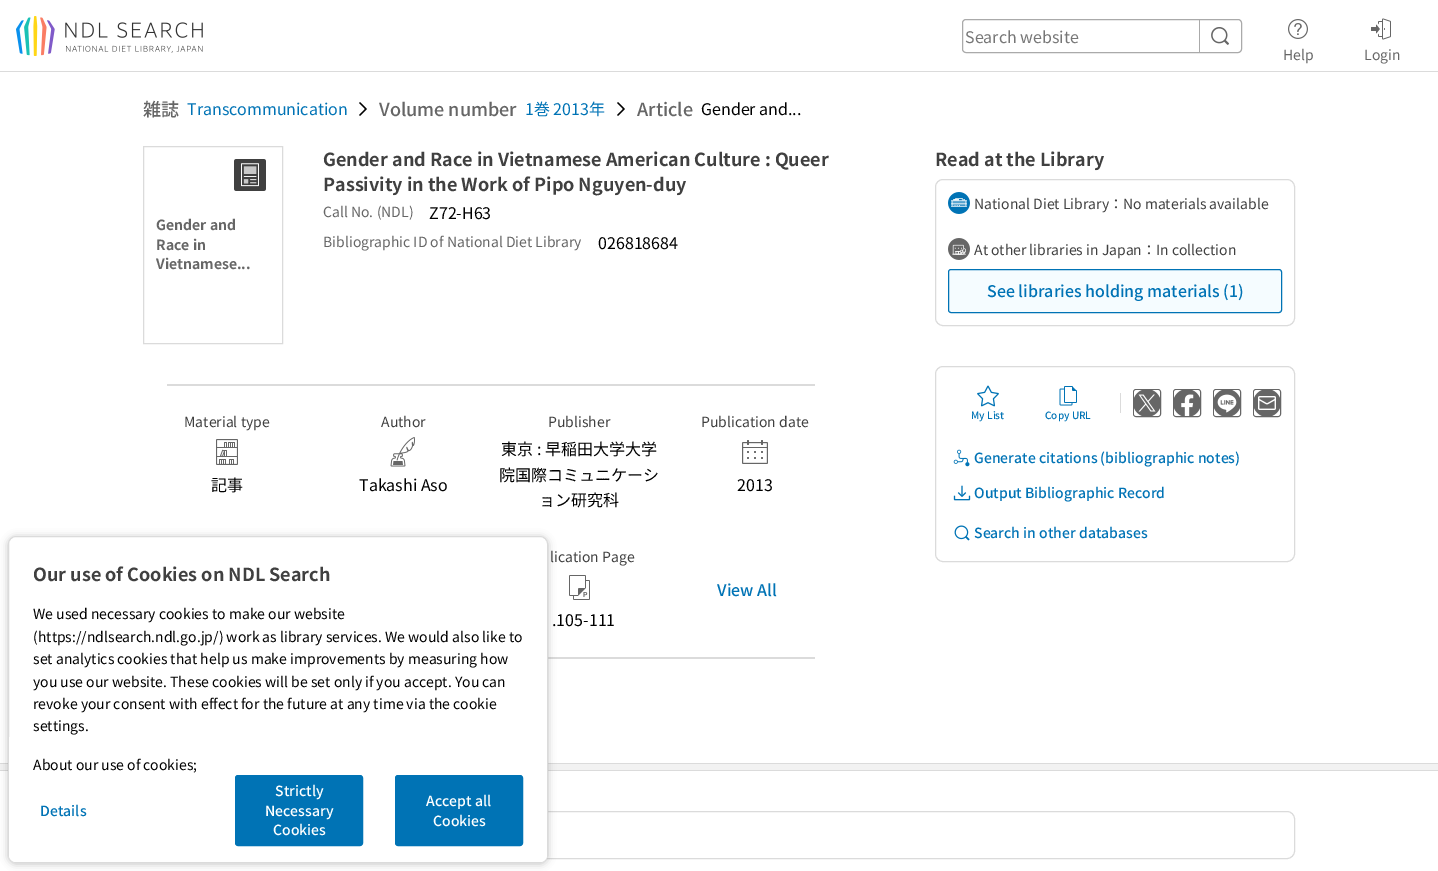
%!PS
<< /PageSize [1438 871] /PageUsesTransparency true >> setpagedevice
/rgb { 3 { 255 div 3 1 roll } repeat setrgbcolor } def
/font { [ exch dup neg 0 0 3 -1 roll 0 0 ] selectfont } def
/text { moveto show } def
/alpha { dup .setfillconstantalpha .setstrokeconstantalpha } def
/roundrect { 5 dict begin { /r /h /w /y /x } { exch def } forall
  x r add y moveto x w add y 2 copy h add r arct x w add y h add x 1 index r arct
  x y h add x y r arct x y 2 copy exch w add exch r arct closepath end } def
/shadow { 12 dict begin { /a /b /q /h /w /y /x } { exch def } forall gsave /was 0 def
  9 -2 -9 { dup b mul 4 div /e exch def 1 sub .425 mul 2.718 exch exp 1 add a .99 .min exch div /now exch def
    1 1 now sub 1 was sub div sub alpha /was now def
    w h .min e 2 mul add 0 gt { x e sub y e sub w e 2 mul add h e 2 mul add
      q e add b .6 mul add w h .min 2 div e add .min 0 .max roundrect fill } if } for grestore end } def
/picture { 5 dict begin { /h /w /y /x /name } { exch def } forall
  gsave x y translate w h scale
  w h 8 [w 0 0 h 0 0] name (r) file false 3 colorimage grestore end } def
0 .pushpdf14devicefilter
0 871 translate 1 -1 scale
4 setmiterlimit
255 255 255 rgb
0 0 1438 871 rectfill
219 219 219 rgb
0 71 1438 1 rectfill
(img_01.rgb) 16 16 187 40 picture
170 170 170 rgb
962.5 19.5 279 33 3.5 roundrect stroke
1199 19 1 34 rectfill
(img_02.rgb) 1211 27 18 18 picture
(img_03.rgb) 1288 19 20 20 picture
(img_04.rgb) 1371 18 20 22 picture
(img_05.rgb) 359 102 8 14 picture
(img_05.rgb) 617 102 8 14 picture
219 219 219 rgb
143.5 146.5 139 197 rectstroke
(img_06.rgb) 234 159 32 32 picture
167 384 648 2 rectfill
(img_07.rgb) 216 439 22 26 picture
(img_08.rgb) 390 437 25 30 picture
(img_09.rgb) 742 440 26 24 picture
(img_10.rgb) 569 575 21 25 picture
548 657 267 2 rectfill
935.5 179.5 359 146 7.5 roundrect stroke
(img_11.rgb) 948 192 22 22 picture
(img_12.rgb) 948 238 22 22 picture
245 252 255 rgb
948.5 269.5 333 43 2.5 roundrect gsave fill grestore
0 115 181 rgb
stroke
219 219 219 rgb
935.5 366.5 359 195 7.5 roundrect stroke
1120 393 1 20 rectfill
102 102 102 rgb
1133.5 389.5 27 27 2.5 roundrect stroke
(img_13.rgb) 1134 390 26 26 picture
1173.5 389.5 27 27 2.5 roundrect stroke
(img_14.rgb) 1174 390 26 26 picture
1213.5 389.5 27 27 2.5 roundrect stroke
(img_15.rgb) 1214 390 26 26 picture
1253.5 389.5 27 27 2.5 roundrect stroke
(img_16.rgb) 1254 390 26 26 picture
(img_17.rgb) 977 385 22 22 picture
(img_18.rgb) 1059 386 18 20 picture
(img_19.rgb) 953 449 17 18 picture
(img_20.rgb) 953 485 18 16 picture
(img_21.rgb) 954 525 16 16 picture
242 242 242 rgb
0 764 1438 6 rectfill
219 219 219 rgb
0 763 1438 1 rectfill
0 770 1438 1 rectfill
143.5 811.5 1151 47 7.5 roundrect stroke
0 0 0 rgb
8 537 540 327 8 4 0.24 shadow
255 255 255 rgb
8.5 536.5 539 326 7.5 roundrect gsave fill grestore
219 219 219 rgb
stroke
255 255 255 rgb
9 737 moveto 538 0 rlineto 0 118 rlineto 0 4 -3 7 -7 7 rcurveto -524 0 rlineto -4 0 -7 -3 -7 -7 rcurveto closepath fill
0 115 181 rgb
235.5 775.5 127 70 2.5 roundrect gsave fill grestore
stroke
395.5 775.5 127 70 2.5 roundrect gsave fill grestore
stroke
/NotoSansJP-Regular 16 font
118 118 118 rgb
(Search website) 965 43 text
/NotoSansJP-Regular 14 font
102 102 102 rgb
(Help) 1283 60 text
(Login) 1364 60 text
/NotoSansJP-Medium 18 font
(雑誌) 143 116 text
/NotoSansJP-Regular 16 font
0 115 181 rgb
(Transcommunication) 187 115 text
/NotoSansJP-Medium 18 font
102 102 102 rgb
(Volume number) 379 116 text
/NotoSansJP-Regular 16 font
0 115 181 rgb
(1巻 2013年) 525 115 text
/NotoSansJP-Medium 18 font
102 102 102 rgb
(Article) 637 116 text
/NotoSansJP-Regular 16 font
0 0 0 rgb
(Gender and...) 701 115 text
/NotoSansJP-Bold 14 font
102 102 102 rgb
(Gender and) 156 230 text
(Race in) 156 250 text
(Vietnamese...) 156 269 text
/NotoSansJP-Bold 18 font
64 64 64 rgb
(Gender and Race in Vietnamese American Culture : Queer) 323 166 text
(Passivity in the Work of Pipo Nguyen-duy) 323 191 text
/NotoSansJP-Regular 14 font
102 102 102 rgb
(Call No. \(NDL\)) 323 217 text
/NotoSansJP-Regular 16 font
0 0 0 rgb
(Z72-H63) 429 219 text
/NotoSansJP-Regular 14 font
102 102 102 rgb
(Bibliographic ID of National Diet Library) 323 247 text
/NotoSansJP-Regular 16 font
0 0 0 rgb
(026818684) 598 249 text
/NotoSansJP-Regular 14 font
64 64 64 rgb
(Material type) 184 427 text
/NotoSansJP-Regular 16 font
0 0 0 rgb
(記事) 211 491 text
/NotoSansJP-Regular 14 font
64 64 64 rgb
(Author) 381 427 text
/NotoSansJP-Regular 16 font
0 0 0 rgb
(Takashi Aso) 359 491 text
/NotoSansJP-Regular 14 font
64 64 64 rgb
(Publisher) 548 427 text
/NotoSansJP-Regular 16 font
0 0 0 rgb
(東京 : 早稲田大学大学) 501 455 text
(院国際コミュニケーシ) 499 481 text
(ョン研究科) 539 506 text
/NotoSansJP-Regular 14 font
64 64 64 rgb
(Publication date) 701 427 text
/NotoSansJP-Regular 16 font
0 0 0 rgb
(2013) 737 491 text
/NotoSansJP-Regular 14 font
64 64 64 rgb
(lication Page) 550 562 text
/NotoSansJP-Regular 16 font
0 0 0 rgb
(.105-111) 552 626 text
/NotoSansJP-Medium 16 font
0 115 181 rgb
(View All) 717 596 text
/NotoSansJP-Bold 18 font
64 64 64 rgb
(Read at the Library) 935 166 text
/NotoSansJP-Regular 14 font
(National Diet Library：No materials available) 974 209 text
(At other libraries in Japan：In collection) 974 255 text
/NotoSansJP-Medium 16 font
0 115 181 rgb
(See libraries holding materials \(1\)) 987 297 text
/NotoSansJP-Medium 10 font
(My List) 971 419 text
(Copy URL) 1045 419 text
/NotoSansJP-Medium 14 font
(Generate citations \(bibliographic notes\)) 974 463 text
(Output Bibliographic Record) 974 498 text
(Search in other databases) 974 538 text
/NotoSansJP-Bold 18 font
64 64 64 rgb
(Our use of Cookies on NDL Search) 33 581 text
/NotoSansJP-Regular 14 font
0 0 0 rgb
(We used necessary cookies to make our website) 33 619 text
(\(https://ndlsearch.ndl.go.jp/\) work as library services. We would also like to) 33 642 text
(set analytics cookies that help us make improvements by measuring how) 33 664 text
(you use our website. These cookies will be set only if you accept. You can) 33 687 text
(revoke your consent with effect for the future at any time via the cookie) 33 709 text
(settings.) 33 731 text
(About our use of cookies;) 33 770 text
/NotoSansJP-Medium 14 font
0 115 181 rgb
(Details) 40 816 text
255 255 255 rgb
(Strictly) 275 796 text
(Necessary) 265 816 text
(Cookies) 273 835 text
(Accept all) 426 806 text
(Cookies) 433 826 text
.poppdf14devicefilter showpage
